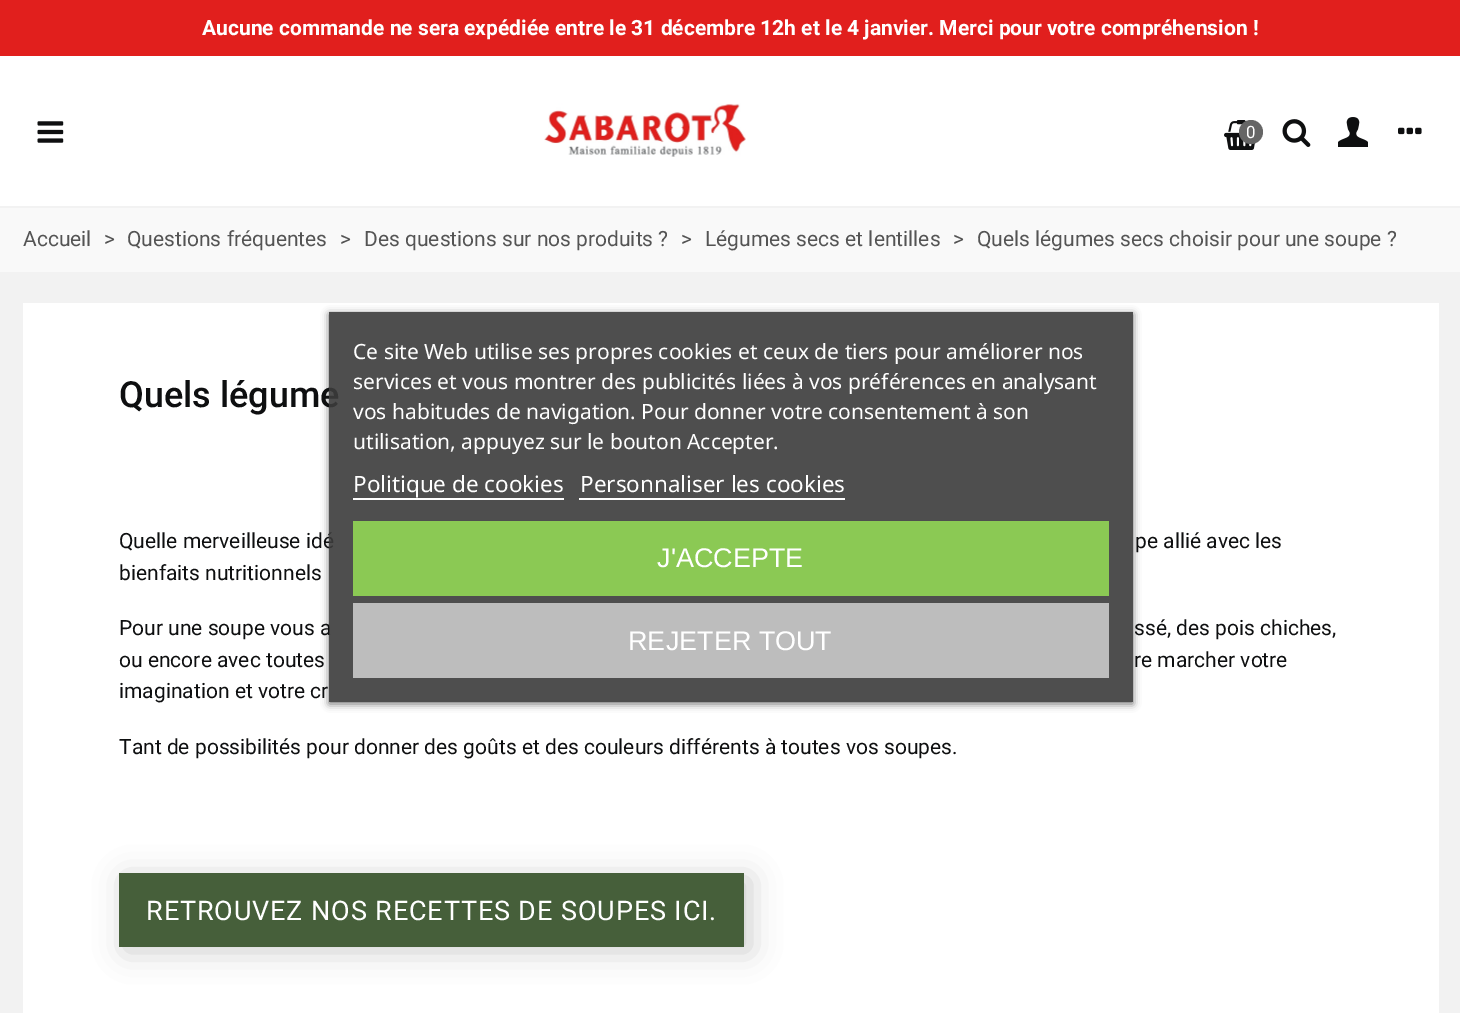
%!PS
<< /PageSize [1460 1013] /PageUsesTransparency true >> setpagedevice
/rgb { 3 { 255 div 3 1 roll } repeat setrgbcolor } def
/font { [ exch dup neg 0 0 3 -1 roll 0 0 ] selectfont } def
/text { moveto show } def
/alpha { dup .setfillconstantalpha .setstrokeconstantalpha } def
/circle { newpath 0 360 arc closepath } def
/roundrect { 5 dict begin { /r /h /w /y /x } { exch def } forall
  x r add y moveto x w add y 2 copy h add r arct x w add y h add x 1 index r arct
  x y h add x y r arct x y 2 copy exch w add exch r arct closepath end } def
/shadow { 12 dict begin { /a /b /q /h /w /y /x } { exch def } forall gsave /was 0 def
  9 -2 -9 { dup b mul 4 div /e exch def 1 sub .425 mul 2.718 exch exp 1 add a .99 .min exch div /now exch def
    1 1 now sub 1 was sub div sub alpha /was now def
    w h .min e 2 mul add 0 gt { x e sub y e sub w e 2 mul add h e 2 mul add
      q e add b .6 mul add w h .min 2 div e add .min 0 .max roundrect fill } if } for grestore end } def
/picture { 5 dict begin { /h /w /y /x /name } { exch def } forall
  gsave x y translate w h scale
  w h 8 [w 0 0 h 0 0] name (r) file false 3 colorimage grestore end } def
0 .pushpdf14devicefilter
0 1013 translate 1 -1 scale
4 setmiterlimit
242 242 242 rgb
0 0 1460 1013 rectfill
255 255 255 rgb
0 56 1460 150 rectfill
225 31 29 rgb
0 0 1460 56 rectfill
(img_01.rgb) 37 121 27 22 picture
(img_02.rgb) 544 103 202 54 picture
(img_03.rgb) 1224 120 31 30 picture
102 102 102 rgb
1251 132 12 circle fill
(img_04.rgb) 1282 119 29 28 picture
(img_05.rgb) 1338 117 30 30 picture
(img_06.rgb) 1398 127 24 8 picture
249 249 249 rgb
0 208 1460 64 rectfill
255 255 255 rgb
23 303 1416 710 rectfill
gsave
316 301 moveto 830 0 rlineto 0 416 rlineto -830 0 rlineto closepath 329 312 moveto 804 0 rlineto 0 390 rlineto -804 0 rlineto closepath eoclip newpath
112 112 112 rgb
329 314 804 390 0 4 1 shadow
grestore
0 0 0 rgb
125 878 625 73 0 15 0.2 shadow
70 95 58 rgb
119 873 625 74 rectfill
/Roboto-Bold 21 font
255 255 255 rgb
(Aucune commande ne sera expédiée entre le 31 décembre 12h et le 4 janvier. Merci pour votre compréhension !) 202 35 text
/Roboto-Regular 17 font
(0) 1246 138 text
/Roboto-Regular 21 font
84 84 84 rgb
(Accueil) 23 246 text
(>) 104 246 text
(Questions fréquentes) 127 246 text
(>) 340 246 text
(Des questions sur nos produits ?) 364 246 text
(>) 681 246 text
(Légumes secs et lentilles) 705 246 text
(>) 953 246 text
(Quels légumes secs choisir pour une soupe ?) 977 246 text
/Roboto-Medium 36 font
14 15 16 rgb
(Quels légume) 119 407 text
/Roboto-Regular 21 font
(Quelle merveilleuse idé) 119 548 text
(pe allié avec les) 1135 548 text
(bienfaits nutritionnels) 119 580 text
(Pour une soupe vous a) 119 635 text
0.9 alpha
59 59 59 rgb
329 312 804 390 rectfill
/NotoSans-Regular 22.5 font
1 alpha
255 255 255 rgb
(Personnaliser les cookies) 580 492 text
579 498 266 2 rectfill
(Politique de cookies) 353 492 text
353 498 211 2 rectfill
/NotoSans-Regular 21 font
(utilisation, appuyez sur le bouton Accepter.) 353 449 text
(vos habitudes de navigation. Pour donner votre consentement à son) 353 419 text
(services et vous montrer des publicités liées à vos préférences en analysant) 353 389 text
(Ce site Web utilise ses propres cookies et ceux de tiers pour améliorer nos) 353 359 text
139 201 84 rgb
353 521 756 75 rectfill
/LiberationSans-Regular 27 font
255 255 255 rgb
(J'ACCEPTE) 657 567 text
189 189 189 rgb
353 603 756 75 rectfill
255 255 255 rgb
(REJETER TOUT) 628 650 text
/Roboto-Regular 21 font
14 15 16 rgb
(ssé, des pois chiches,) 1134 635 text
(ou encore avec toutes) 119 667 text
(re marcher votre) 1134 667 text
(imagination et votre cr) 119 698 text
(Tant de possibilités pour donner des goûts et des couleurs différents à toutes vos soupes.) 119 754 text
/Roboto-Regular 27 font
255 255 255 rgb
146 920 moveto 0.9 0 (RETROUVEZ NOS RECETTES DE SOUPES ICI.) ashow
.poppdf14devicefilter showpage
